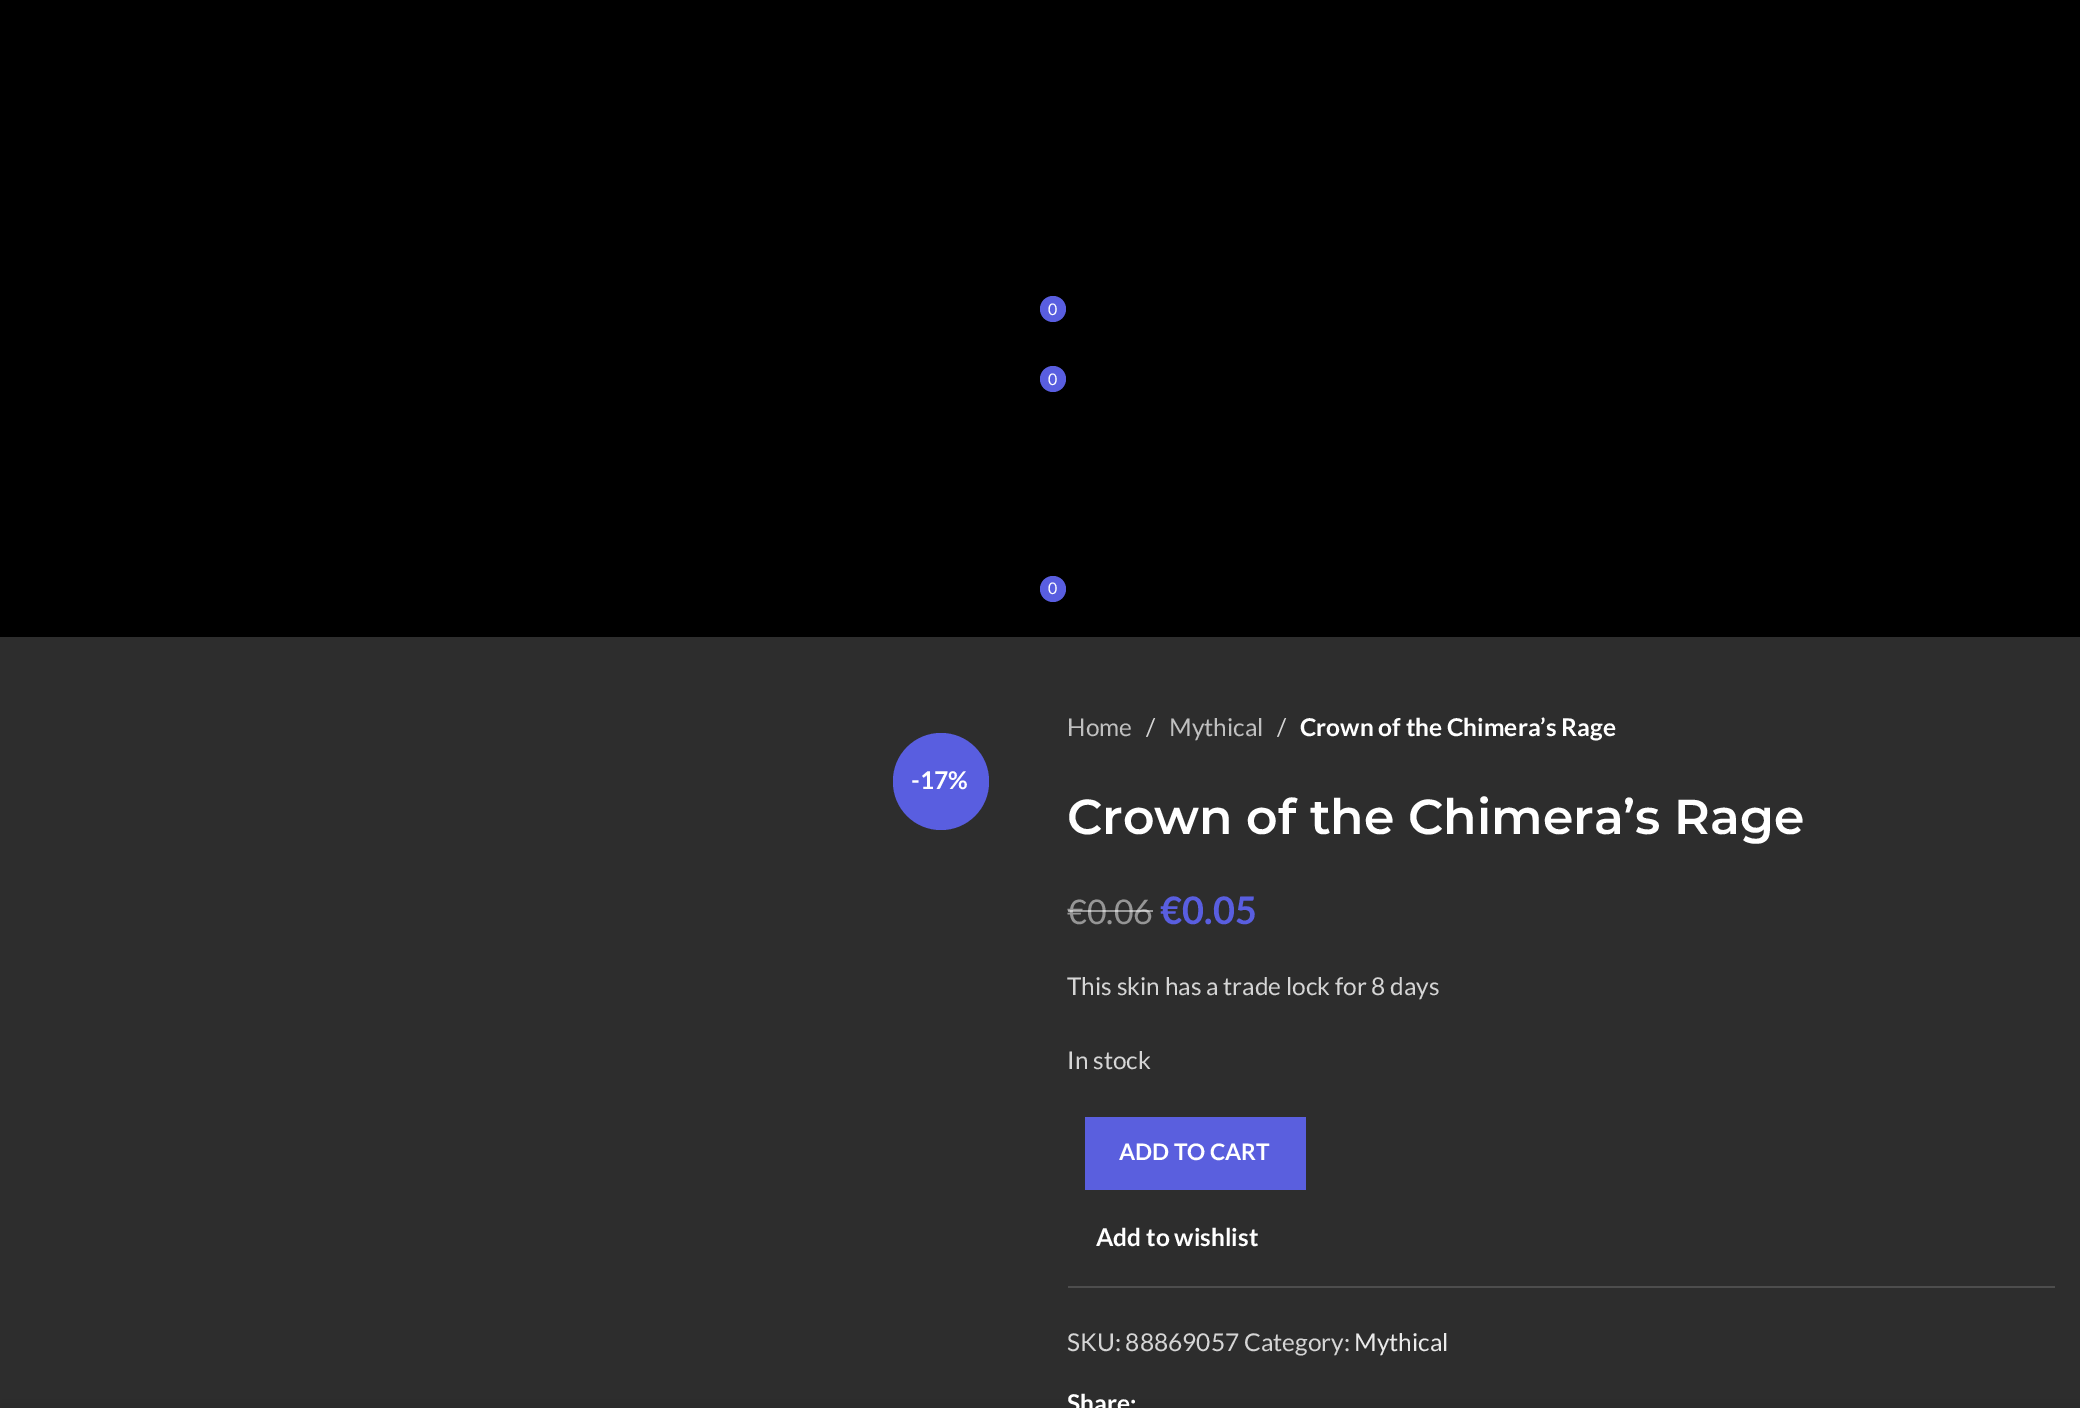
%!PS
<< /PageSize [2080 1408] /PageUsesTransparency true >> setpagedevice
/rgb { 3 { 255 div 3 1 roll } repeat setrgbcolor } def
/font { [ exch dup neg 0 0 3 -1 roll 0 0 ] selectfont } def
/text { moveto show } def
/alpha { dup .setfillconstantalpha .setstrokeconstantalpha } def
/circle { newpath 0 360 arc closepath } def
/roundrect { 5 dict begin { /r /h /w /y /x } { exch def } forall
  x r add y moveto x w add y 2 copy h add r arct x w add y h add x 1 index r arct
  x y h add x y r arct x y 2 copy exch w add exch r arct closepath end } def
/shadow { 12 dict begin { /a /b /q /h /w /y /x } { exch def } forall gsave /was 0 def
  9 -2 -9 { dup b mul 4 div /e exch def 1 sub .425 mul 2.718 exch exp 1 add a .99 .min exch div /now exch def
    1 1 now sub 1 was sub div sub alpha /was now def
    w h .min e 2 mul add 0 gt { x e sub y e sub w e 2 mul add h e 2 mul add
      q e add b .6 mul add w h .min 2 div e add .min 0 .max roundrect fill } if } for grestore end } def
0 .pushpdf14devicefilter
0 1408 translate 1 -1 scale
4 setmiterlimit
0 0 0 rgb
0 0 2080 1408 rectfill
89 94 224 rgb
1053 309 13 circle fill
1053 379 13 circle fill
1053 589 13 circle fill
45 45 45 rgb
0 637 2080 771 rectfill
89 94 224 rgb
893 733 96 97 48 roundrect fill
90 95 222 rgb
1085 1117 221 73 rectfill
77 77 77 rgb
1068 1286 987 2 rectfill
0 0 0 rgb
0 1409 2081 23 0 8 0.14 shadow
/Lato-Regular 16 font
255 255 255 rgb
(0) 1048 315 text
(0) 1048 385 text
(0) 1048 594 text
/Lato-Bold 24.5 font
(-17%) 911 789 text
/Lato-Regular 24.5 font
192 192 192 rgb
(Home) 1067 736 text
213 213 213 rgb
(/) 1146 736 text
192 192 192 rgb
(Mythical) 1169 736 text
213 213 213 rgb
(/) 1277 736 text
/Lato-Bold 24.5 font
255 255 255 rgb
(Crown of the Chimera’s Rage) 1300 736 text
/Montserrat-SemiBold 49 font
(Crown of the Chimera’s Rage) 1067 834 text
/Lato-Regular 34 font
150 150 150 rgb
(€0.06) 1067 924 text
0.5 alpha
255 255 255 rgb
1068 910 19 2 rectfill
1087 910 66 2 rectfill
/Lato-Bold 38 font
1 alpha
89 94 224 rgb
(€0.05) 1160 924 text
/Lato-Regular 24.5 font
213 213 213 rgb
(This skin has a trade lock for 8 days) 1067 995 text
(In stock) 1067 1069 text
/Lato-Bold 22.75 font
255 255 255 rgb
(ADD TO CART) 1119 1160 text
/Lato-Bold 24.5 font
(Add to wishlist) 1096 1246 text
/Lato-Regular 24.5 font
213 213 213 rgb
(SKU: 88869057 Category:) 1067 1351 text
234 234 234 rgb
(Mythical) 1354 1351 text
/Lato-Bold 24.5 font
255 255 255 rgb
(Share:) 1067 1412 text
.poppdf14devicefilter showpage
